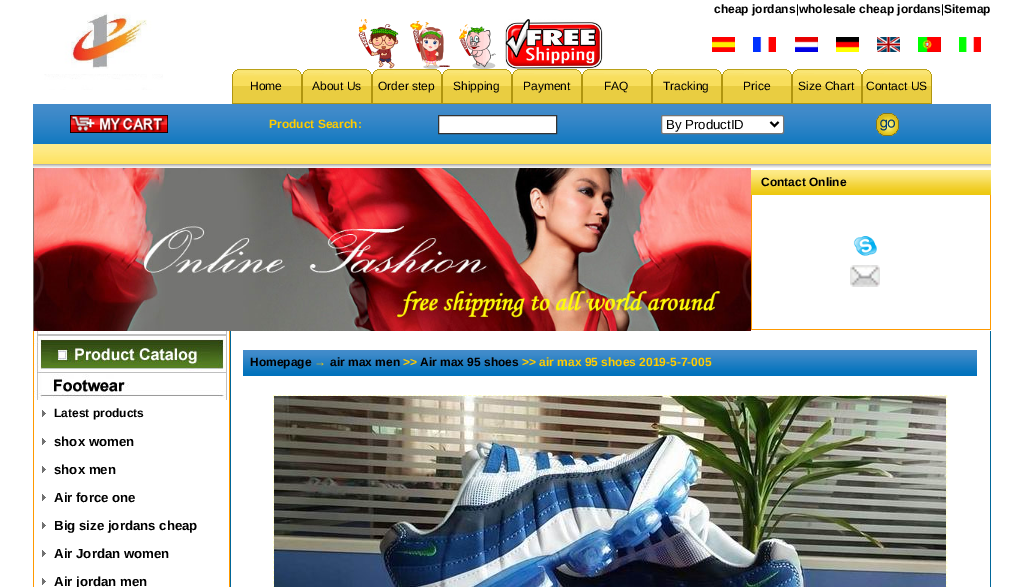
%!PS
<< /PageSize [1023 587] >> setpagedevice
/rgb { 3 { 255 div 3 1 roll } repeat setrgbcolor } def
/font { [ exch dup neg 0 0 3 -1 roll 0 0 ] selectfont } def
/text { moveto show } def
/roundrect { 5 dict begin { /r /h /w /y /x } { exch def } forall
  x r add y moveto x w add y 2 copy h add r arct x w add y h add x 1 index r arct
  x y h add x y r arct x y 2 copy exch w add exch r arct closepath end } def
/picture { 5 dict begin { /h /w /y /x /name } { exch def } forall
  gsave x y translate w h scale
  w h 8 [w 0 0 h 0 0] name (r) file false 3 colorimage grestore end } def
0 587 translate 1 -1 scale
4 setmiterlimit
255 255 255 rgb
0 0 1023 587 rectfill
(img_01.rgb) 44 12 119 78 picture
(img_02.rgb) 358 19 41 50 picture
(img_03.rgb) 410 20 40 49 picture
(img_04.rgb) 459 24 37 45 picture
(img_05.rgb) 504 19 99 50 picture
(img_06.rgb) 712 37 23 15 picture
(img_07.rgb) 753 37 23 15 picture
(img_08.rgb) 795 37 23 15 picture
(img_09.rgb) 836 37 23 15 picture
(img_10.rgb) 877 37 23 15 picture
(img_11.rgb) 918 37 23 15 picture
(img_12.rgb) 959 37 22 15 picture
(img_13.rgb) 232 69 70 35 picture
(img_13.rgb) 302 69 70 35 picture
(img_13.rgb) 372 69 70 35 picture
(img_13.rgb) 442 69 70 35 picture
(img_13.rgb) 512 69 70 35 picture
(img_13.rgb) 582 69 70 35 picture
(img_13.rgb) 652 69 70 35 picture
(img_13.rgb) 722 69 70 35 picture
(img_13.rgb) 792 69 70 35 picture
(img_13.rgb) 862 69 70 35 picture
(img_14.rgb) 33 104 958 40 picture
(img_15.rgb) 70 115 98 18 picture
438.5 115.5 moveto 118 0 rlineto 0 18 rlineto -118 0 rlineto closepath gsave fill grestore
51 51 51 rgb
stroke
255 255 255 rgb
661.5 115.5 122 18 1.5 roundrect gsave fill grestore
118 118 118 rgb
stroke
0 0 0 rgb
2 setlinewidth
770.5 122 moveto 4 4 rlineto 4 -4 rlineto stroke
(img_16.rgb) 876 113 23 23 picture
(img_17.rgb) 33 144 958 24 picture
(img_18.rgb) 33 168 718 163 picture
(img_19.rgb) 751 170 240 25 picture
255 153 0 rgb
990 195 1 135 rectfill
751 329 240 1 rectfill
751 195 1 135 rectfill
(img_20.rgb) 853 236 24 20 picture
(img_21.rgb) 850 265 30 22 picture
0 102 153 rgb
990 331 1 256 rectfill
230 331 1 256 rectfill
(img_22.rgb) 243 350 734 26 picture
255 255 204 rgb
1 setlinewidth
[3 2.01] 0 setdash
273 395.5 moveto 674 0 rlineto stroke
[3 2.03] 0 setdash
273.5 395 moveto 0 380 rlineto stroke
(img_23.rgb) 274 396 672 191 picture
946.5 395 moveto 0 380 rlineto stroke
255 153 0 rgb
229 331 1 256 rectfill
33 331 1 256 rectfill
(img_24.rgb) 34 331 193 43 picture
(img_25.rgb) 34 374 193 26 picture
(img_26.rgb) 42 410 4 7 picture
(img_26.rgb) 42 438 4 7 picture
(img_26.rgb) 42 466 4 7 picture
(img_26.rgb) 42 494 4 7 picture
(img_26.rgb) 42 522 4 7 picture
(img_26.rgb) 42 550 4 7 picture
(img_26.rgb) 42 578 4 7 picture
/LiberationSans-Bold 12 font
0 0 0 rgb
(cheap jordans wholesale cheap jordans Sitemap) 714 13 text
/LiberationSans-Regular 12 font
(|) 796 13 text
(|) 941 13 text
(Home) 250 90 text
(About Us) 312 90 text
(Order step) 378 90 text
(Shipping) 453 90 text
(Payment) 523 90 text
(FAQ) 604 90 text
(Tracking) 663 90 text
(Price) 743 90 text
(Size Chart) 798 90 text
(Contact US) 866 90 text
/LiberationSans-Bold 12 font
255 204 0 rgb
(Product Search:) 269 128 text
/LiberationSans-Regular 13.25 font
0 0 0 rgb
(By ProductID) 666 129 text
/LiberationSans-Bold 12 font
(Contact Online) 761 186 text
(Homepage) 250 366 text
255 204 0 rgb
(→) 314 366 text
0 0 0 rgb
(air max men) 330 366 text
255 204 0 rgb
(>>) 403 366 text
0 0 0 rgb
(Air max 95 shoes) 420 366 text
255 204 0 rgb
(>> air max 95 shoes 2019-5-7-005) 522 366 text
0 0 0 rgb
(Latest products) 54 417 text
/LiberationSans-Bold 13.25 font
(shox women) 54 446 text
(shox men) 54 474 text
(Air force one) 54 502 text
(Big size jordans cheap) 54 530 text
(Air Jordan women) 54 558 text
(Air jordan men) 54 586 text
showpage
